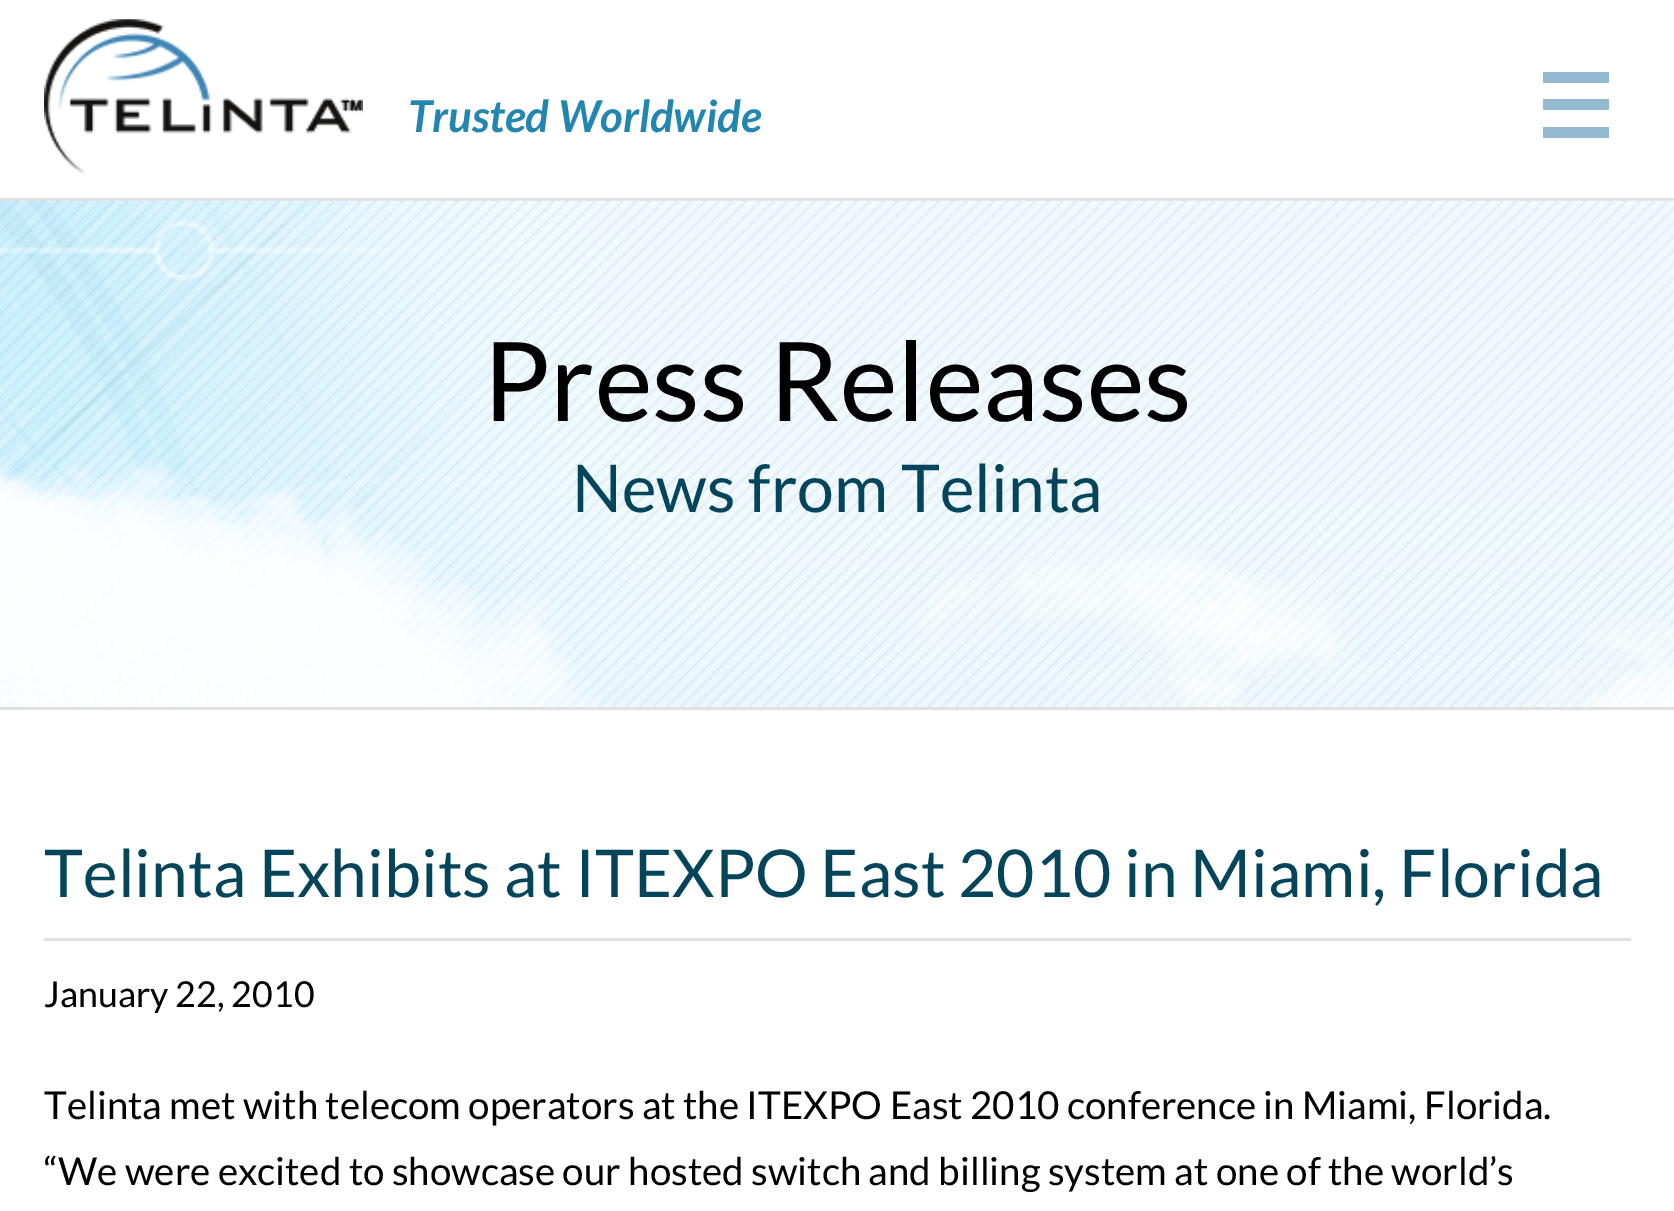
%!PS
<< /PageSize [1674 1211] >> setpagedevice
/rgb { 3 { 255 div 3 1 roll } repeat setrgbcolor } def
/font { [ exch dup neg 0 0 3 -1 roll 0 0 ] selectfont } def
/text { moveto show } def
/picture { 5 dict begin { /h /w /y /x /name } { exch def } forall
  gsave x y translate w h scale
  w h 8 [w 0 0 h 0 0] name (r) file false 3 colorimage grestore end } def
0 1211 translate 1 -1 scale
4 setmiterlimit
255 255 255 rgb
0 0 1674 1211 rectfill
(img_01.rgb) 44 19 319 155 picture
148 186 209 rgb
1543 72 66 11 rectfill
1543 99 66 11 rectfill
1543 127 66 11 rectfill
(img_02.rgb) 7 706 1667 1 picture
225 225 225 rgb
0 198 1674 3 rectfill
0 707 1674 3 rectfill
(img_03.rgb) 0 200 1674 507 picture
44 938 1587 3 rectfill
/Lato-BoldItalic 44 font
34 134 176 rgb
(Trusted Worldwide) 408 132 text
/Lato-Regular 110 font
0 0 0 rgb
(Press Releases) 483 421 text
/Lato-Regular 66 font
4 69 91 rgb
(News from Telinta) 572 512 text
(Telinta Exhibits at ITEXPO East 2010 in Miami, Florida) 44 897 text
/Lato-Regular 35.75 font
0 0 0 rgb
(January 22, 2010) 44 1007 text
/Lato-Regular 38.5 font
(Telinta met with telecom operators at the ITEXPO East 2010 conference in Miami, Florida.) 44 1119 text
(“We were excited to showcase our hosted switch and billing system at one of the world’s) 44 1185 text
showpage
